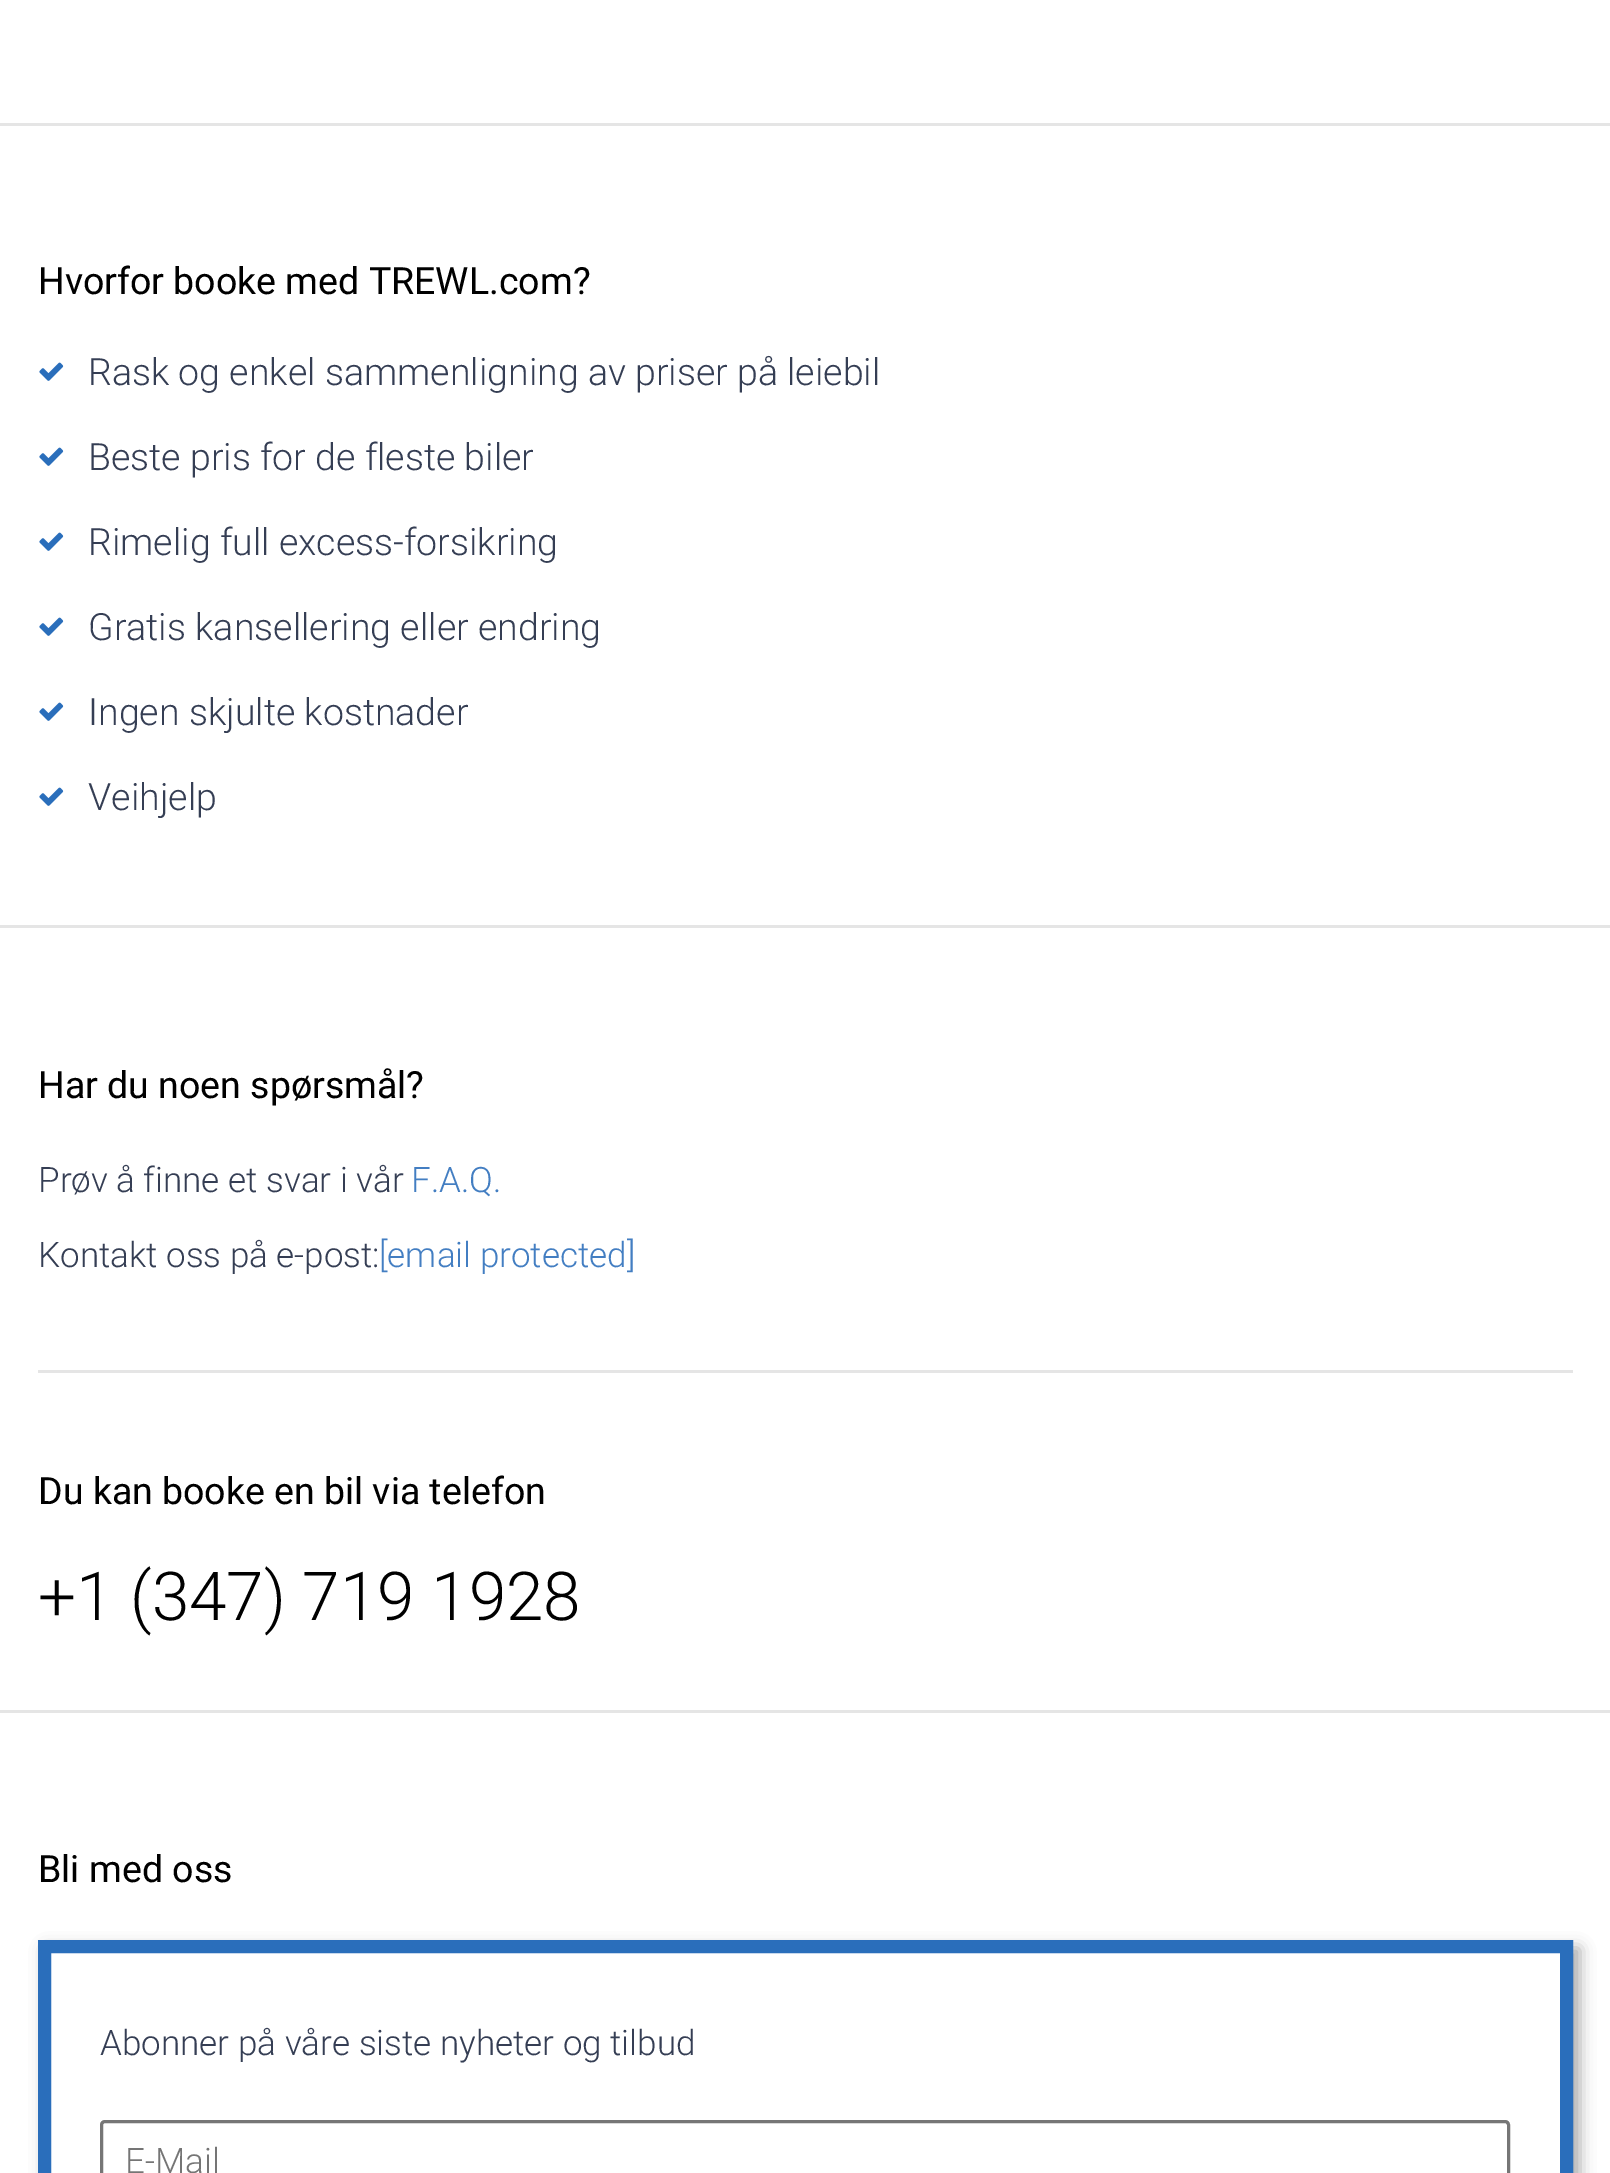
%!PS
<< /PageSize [1610 2173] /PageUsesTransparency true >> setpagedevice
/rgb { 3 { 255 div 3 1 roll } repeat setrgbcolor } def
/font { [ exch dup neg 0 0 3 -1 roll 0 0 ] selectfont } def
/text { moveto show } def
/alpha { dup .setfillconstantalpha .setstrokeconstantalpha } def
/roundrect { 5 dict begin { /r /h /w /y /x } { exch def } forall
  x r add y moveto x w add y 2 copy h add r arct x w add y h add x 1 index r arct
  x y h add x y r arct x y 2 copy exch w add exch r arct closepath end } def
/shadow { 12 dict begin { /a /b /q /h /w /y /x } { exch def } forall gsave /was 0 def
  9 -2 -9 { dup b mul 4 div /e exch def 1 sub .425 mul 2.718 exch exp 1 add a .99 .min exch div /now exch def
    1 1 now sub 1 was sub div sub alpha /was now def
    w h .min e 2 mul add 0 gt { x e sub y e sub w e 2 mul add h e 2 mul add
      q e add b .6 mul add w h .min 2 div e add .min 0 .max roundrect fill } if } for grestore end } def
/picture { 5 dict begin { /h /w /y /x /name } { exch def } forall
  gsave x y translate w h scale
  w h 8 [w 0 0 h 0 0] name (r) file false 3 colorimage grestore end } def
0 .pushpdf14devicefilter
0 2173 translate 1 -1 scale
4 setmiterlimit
255 255 255 rgb
0 0 1610 2173 rectfill
229 229 229 rgb
0 123 1610 3 rectfill
0 925 1610 3 rectfill
(img_01.rgb) 39 362 25 19 picture
(img_01.rgb) 39 447 25 19 picture
(img_01.rgb) 39 532 25 19 picture
(img_01.rgb) 39 617 25 19 picture
(img_01.rgb) 39 702 25 19 picture
(img_01.rgb) 39 787 25 19 picture
0 1710 1610 3 rectfill
38 1370 1535 3 rectfill
gsave
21 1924 moveto 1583 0 rlineto 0 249 rlineto -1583 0 rlineto closepath 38 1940 moveto 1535 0 rlineto 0 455 rlineto -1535 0 rlineto closepath eoclip newpath
170 170 170 rgb
45 1948 1535 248 0 7.5 1 shadow
grestore
42 110 187 rgb
13 setlinewidth
44.5 1946.5 1522 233 rectstroke
118 118 118 rgb
3 setlinewidth
101.5 2121.5 1407 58 3.5 roundrect stroke
/Roboto-Regular 37.5 font
0 0 0 rgb
(Hvorfor booke med TREWL.com?) 38 294 text
/Roboto-Light 37.5 font
53 62 84 rgb
(Rask og enkel sammenligning av priser på leiebil) 88 385 text
(Beste pris for de fleste biler) 88 470 text
(Rimelig full excess-forsikring) 88 555 text
(Gratis kansellering eller endring) 88 640 text
(Ingen skjulte kostnader) 88 725 text
(Veihjelp) 88 810 text
/Roboto-Regular 37.5 font
0 0 0 rgb
(Har du noen spørsmål?) 38 1098 text
/Roboto-Light 35 font
53 62 84 rgb
(Prøv å finne et svar i vår) 38 1192 text
67 126 194 rgb
(F.A.Q.) 411 1192 text
53 62 84 rgb
(Kontakt oss på e-post:) 38 1267 text
67 126 194 rgb
([email protected]) 379 1267 text
/Roboto-Regular 37.5 font
0 0 0 rgb
(Du kan booke en bil via telefon) 38 1504 text
/Roboto-Light 67.5 font
(+1 \(347\) 719 1928) 38 1620 text
/Roboto-Regular 37.5 font
(Bli med oss) 38 1882 text
/Roboto-Light 35 font
53 62 84 rgb
(Abonner på våre siste nyheter og tilbud) 100 2055 text
117 117 117 rgb
(E-Mail) 125 2173 text
.poppdf14devicefilter showpage
